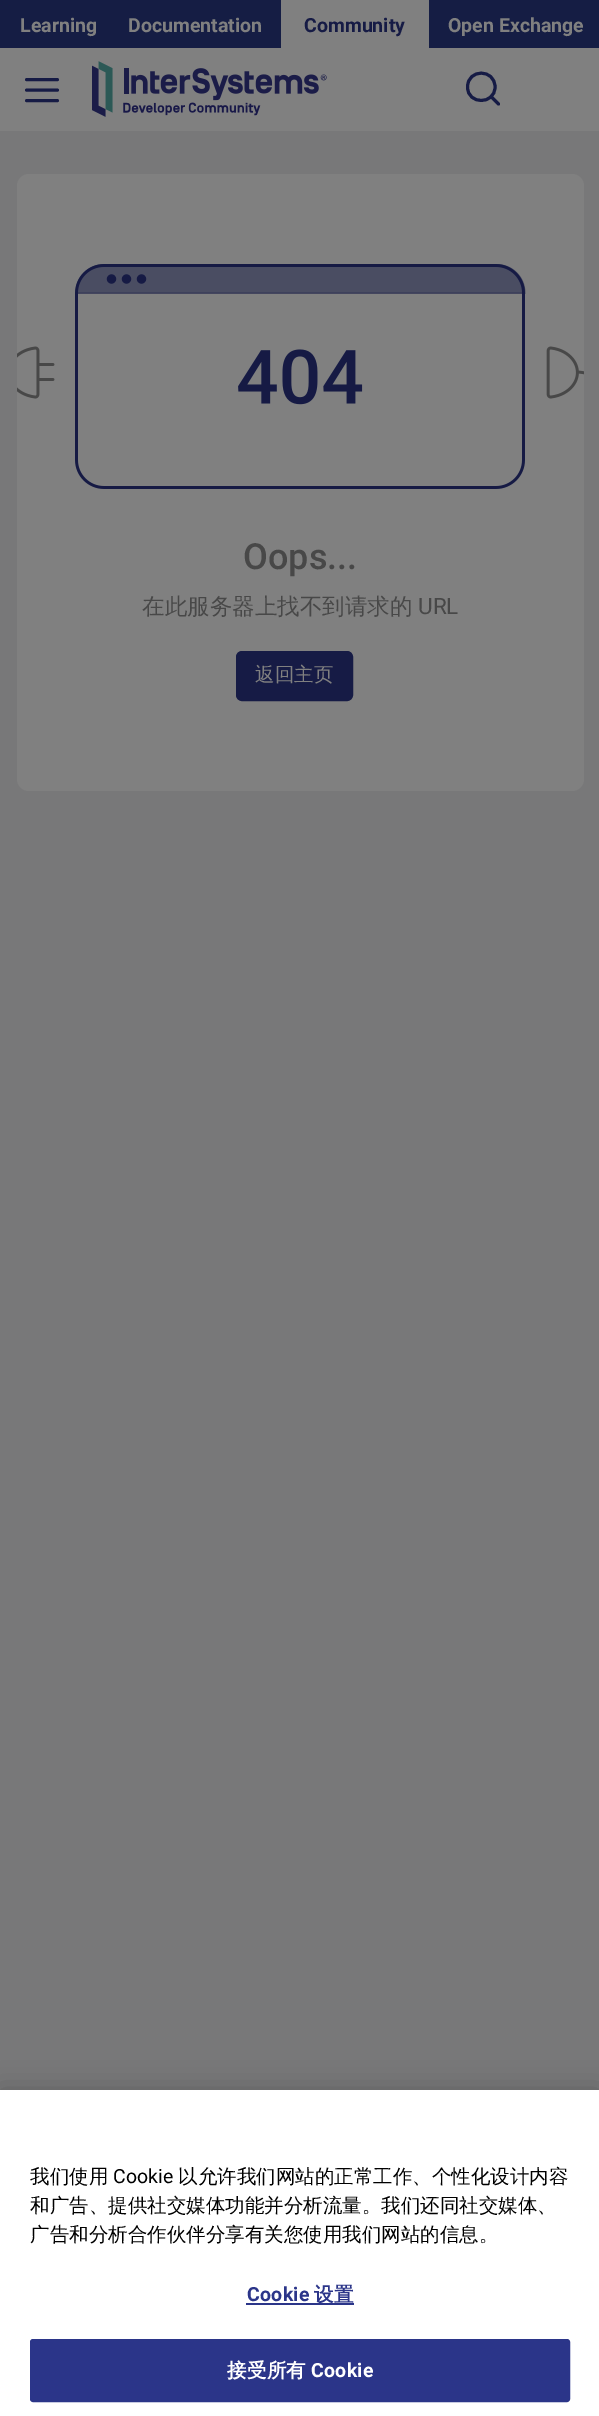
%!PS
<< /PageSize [599 2416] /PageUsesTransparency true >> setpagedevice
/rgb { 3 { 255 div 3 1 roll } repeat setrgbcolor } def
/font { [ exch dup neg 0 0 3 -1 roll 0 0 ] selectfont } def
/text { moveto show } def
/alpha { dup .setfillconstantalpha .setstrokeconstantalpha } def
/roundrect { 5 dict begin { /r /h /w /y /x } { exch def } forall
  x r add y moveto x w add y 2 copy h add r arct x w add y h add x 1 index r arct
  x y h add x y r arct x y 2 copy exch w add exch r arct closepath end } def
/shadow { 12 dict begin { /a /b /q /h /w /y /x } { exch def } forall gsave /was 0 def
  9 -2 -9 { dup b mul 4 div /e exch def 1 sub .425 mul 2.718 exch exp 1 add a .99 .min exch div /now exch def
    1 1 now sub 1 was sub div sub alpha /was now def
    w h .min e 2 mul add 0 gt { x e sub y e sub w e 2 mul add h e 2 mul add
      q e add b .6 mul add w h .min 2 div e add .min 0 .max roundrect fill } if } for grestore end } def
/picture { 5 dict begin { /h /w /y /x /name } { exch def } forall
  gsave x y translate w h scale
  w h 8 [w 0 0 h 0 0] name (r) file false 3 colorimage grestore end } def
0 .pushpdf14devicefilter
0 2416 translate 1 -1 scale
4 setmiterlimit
120 120 121 rgb
0 0 599 2416 rectfill
128 128 128 rgb
0 48 599 83 rectfill
21 29 68 rgb
0 0 599 48 rectfill
128 128 128 rgb
281 0 148 48 rectfill
22 27 69 rgb
3 setlinewidth
1 setlinecap
1 setlinejoin
26.5 90 moveto 31 0 rlineto 26.5 79.5 moveto 31 0 rlineto 26.5 100.5 moveto 31 0 rlineto stroke
(img_01.rgb) 92 61 235 56 picture
498.5 104 moveto -7.5 -7.5 rlineto 495 87 moveto 0 18 -27.5 18 -27.5 0 rcurveto 0 -18.5 27.5 -18.5 27.5 0 rcurveto closepath stroke
128 128 128 rgb
17 174 567 617 12 roundrect fill
(img_02.rgb) 17 264 567 225 picture
22 27 69 rgb
237 652 115 48 5 roundrect gsave fill grestore
2 setlinewidth
0 setlinecap
0 setlinejoin
stroke
0 0 0 rgb
0 2090 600 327 0 13.5 0.2 shadow
255 255 255 rgb
0 2090 599 326 rectfill
43 53 137 rgb
246 2303 108 2 rectfill
31 2340 538 61 2 roundrect gsave fill grestore
stroke
/Roboto-Bold 19.5 font
128 128 128 rgb
(Learning) 20 32 text
(Documentation) 128 32 text
22 27 69 rgb
(Community) 304 32 text
128 128 128 rgb
(Open Exchange) 448 32 text
/Roboto-Medium 36 font
72 72 72 rgb
(Oops...) 243 569 text
/WenQuanYiZenHei-Medium 22.5 font
(在此服务器上找不到请求的) 142 614 text
/Roboto-Regular 22.5 font
(URL) 418 614 text
/WenQuanYiZenHei-Medium 19.5 font
128 128 128 rgb
(返回主页) 255 681 text
0 0 0 rgb
(我们使用) 30 2183 text
/Roboto-Regular 19.5 font
(Cookie) 113 2183 text
/WenQuanYiZenHei-Medium 19.5 font
(以允许我们网站的正常工作、个性化设计内容) 178 2183 text
(和广告、提供社交媒体功能并分析流量。我们还同社交媒体、) 30 2212 text
(广告和分析合作伙伴分享有关您使用我们网站的信息。) 30 2241 text
/Roboto-Bold 19.5 font
43 53 137 rgb
247 2301 moveto 0.25 0 (Cookie) ashow
/WenQuanYiZenHei-Bold 19.5 font
314 2301 moveto 0.25 0 (设置) ashow
255 255 255 rgb
227 2377 moveto 0.25 0 (接受所有) ashow
/Roboto-Bold 19.5 font
311 2377 moveto 0.25 0 (Cookie) ashow
.poppdf14devicefilter showpage
